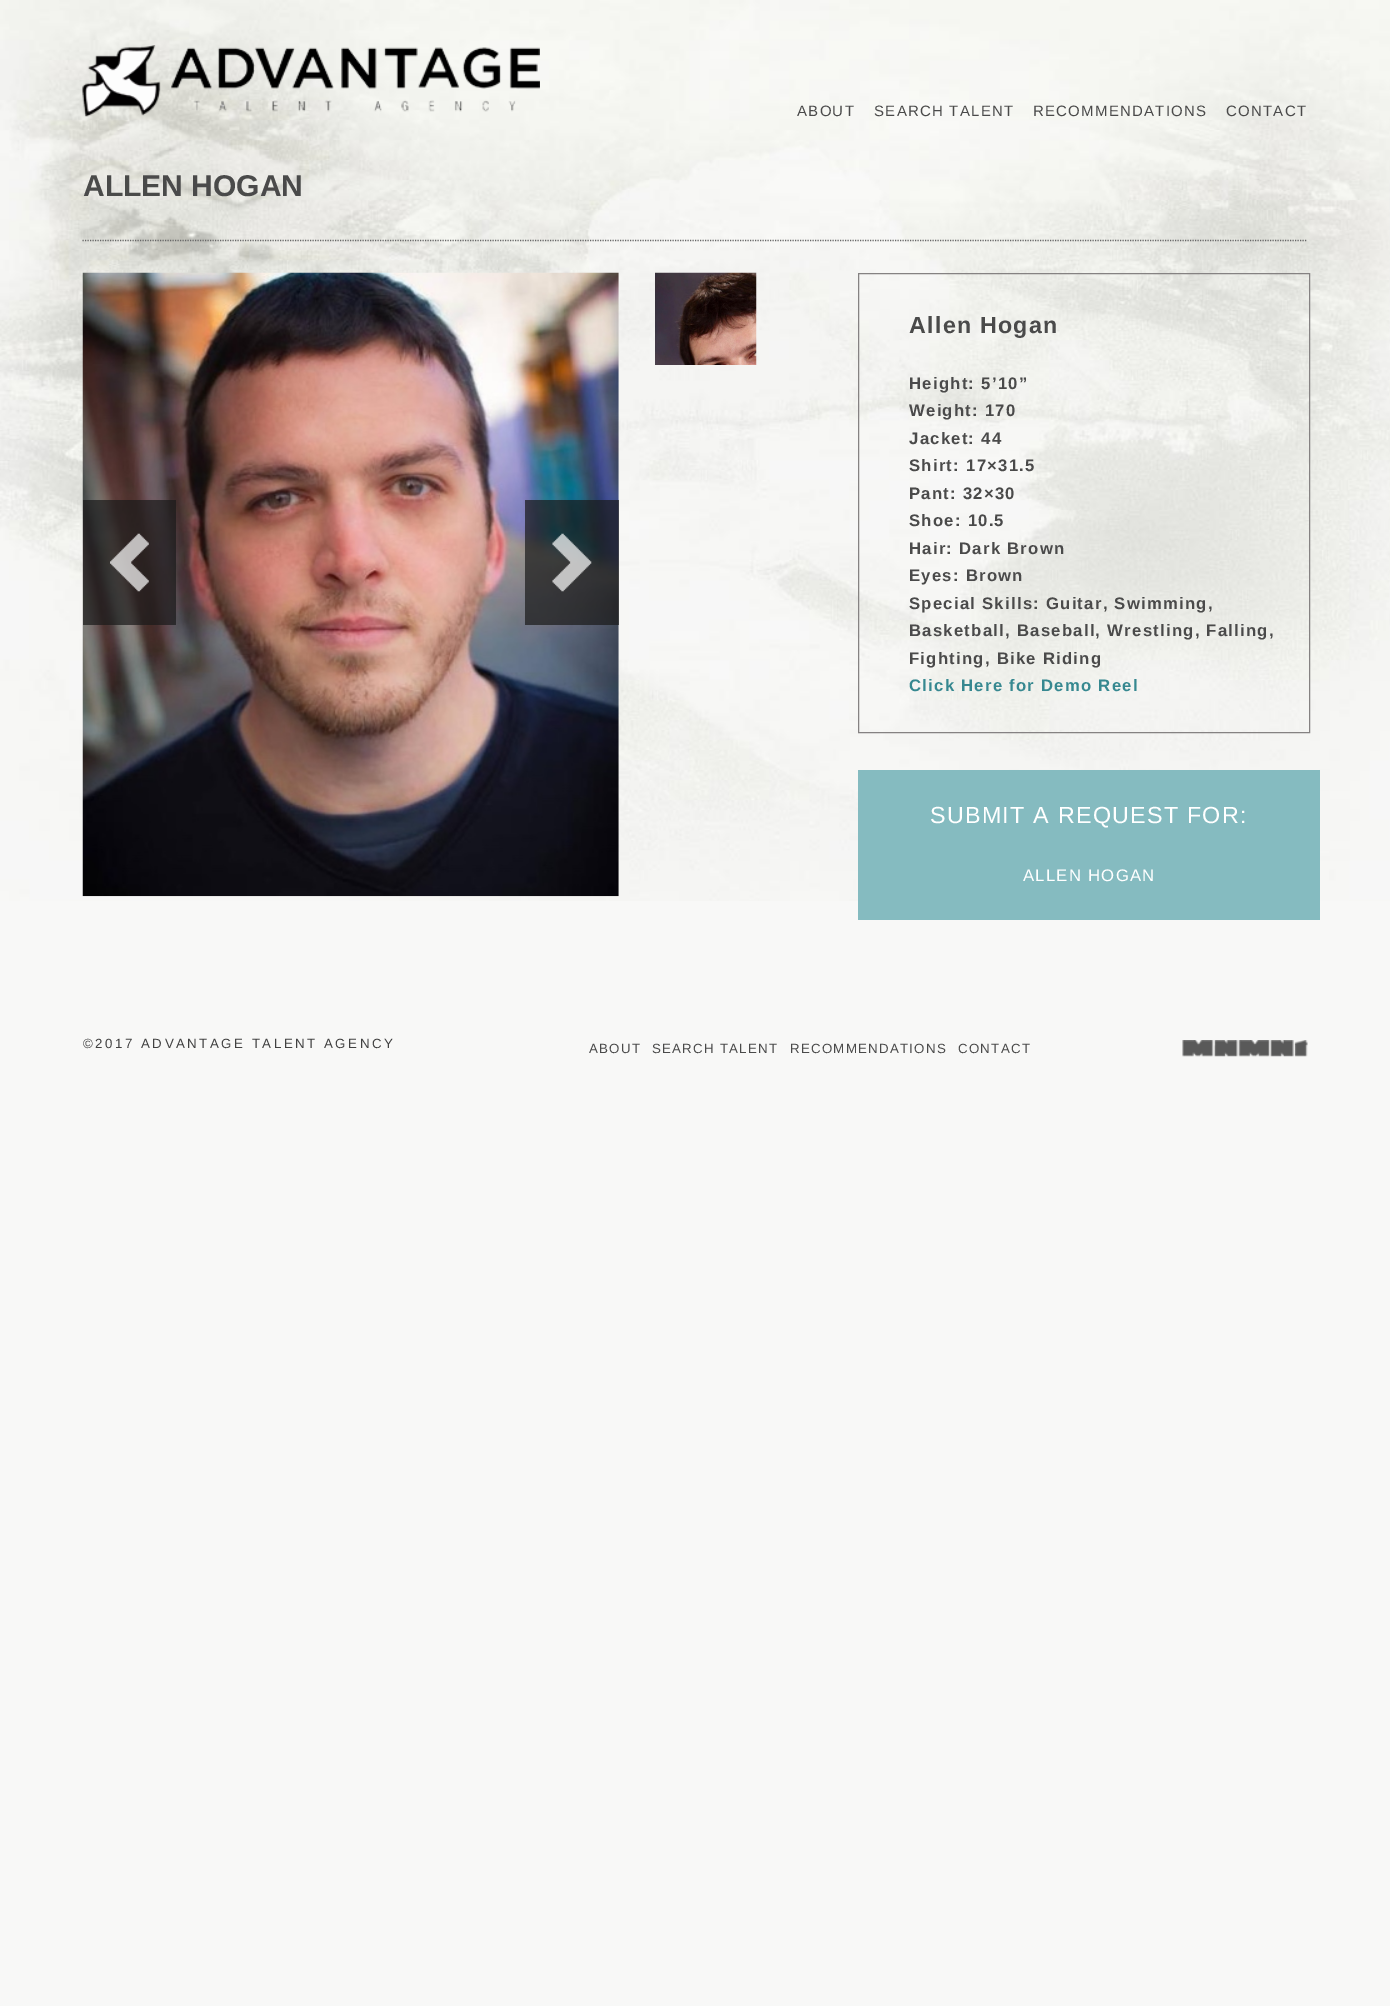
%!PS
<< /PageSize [1390 2006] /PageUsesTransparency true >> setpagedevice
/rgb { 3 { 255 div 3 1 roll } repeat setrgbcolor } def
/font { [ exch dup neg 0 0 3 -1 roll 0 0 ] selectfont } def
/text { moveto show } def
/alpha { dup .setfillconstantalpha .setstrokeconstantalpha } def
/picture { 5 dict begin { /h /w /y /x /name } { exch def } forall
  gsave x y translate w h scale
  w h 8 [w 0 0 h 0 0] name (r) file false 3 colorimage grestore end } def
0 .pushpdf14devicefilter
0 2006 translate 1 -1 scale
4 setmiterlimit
248 248 247 rgb
0 0 1390 2006 rectfill
(img_01.rgb) 0 0 1390 901 picture
(img_02.rgb) 82 45 458 72 picture
102 102 102 rgb
1.2 setlinewidth
[1.25 1.25] 0 setdash
82.5 240.5 moveto 1225 0 rlineto stroke
(img_03.rgb) 82 272 537 625 picture
(img_04.rgb) 655 272 102 93 picture
133 130 130 rgb
1 setlinewidth
[] 0 setdash
858.5 273.5 451 459 rectstroke
133 187 192 rgb
858 770 462 150 rectfill
0.7 alpha
25 25 25 rgb
83 500 93 125 rectfill
1 alpha
(img_05.rgb) 110 533 39 59 picture
0.7 alpha
525 500 94 125 rectfill
1 alpha
(img_06.rgb) 552 533 40 59 picture
(img_07.rgb) 1182 1040 126 17 picture
/LiberationSans-Regular 15 font
74 74 74 rgb
797 116 moveto 1.25 0 (ABOUT) ashow
874 116 moveto 1.25 0 (SEARCH TALENT) ashow
1033 116 moveto 1.25 0 (RECOMMENDATIONS) ashow
1226 116 moveto 1.25 0 (CONTACT) ashow
/LiberationSans-Bold 30 font
(ALLEN HOGAN) 83 196 text
/LiberationSans-Bold 23.3 font
909 333 moveto 1.25 0 (Allen Hogan) ashow
/LiberationSans-Bold 16.7 font
909 389 moveto 1.25 0 (Height: 5’10”) ashow
909 416 moveto 1.25 0 (Weight: 170) ashow
909 444 moveto 1.25 0 (Jacket: 44) ashow
909 471 moveto 1.25 0 (Shirt: 17×31.5) ashow
909 499 moveto 1.25 0 (Pant: 32×30) ashow
909 526 moveto 1.25 0 (Shoe: 10.5) ashow
909 554 moveto 1.25 0 (Hair: Dark Brown) ashow
909 581 moveto 1.25 0 (Eyes: Brown) ashow
909 609 moveto 1.25 0 (Special Skills: Guitar, Swimming,) ashow
909 636 moveto 1.25 0 (Basketball, Baseball, Wrestling, Falling,) ashow
909 664 moveto 1.25 0 (Fighting, Bike Riding) ashow
54 136 144 rgb
909 691 moveto 1.25 0 (Click Here for Demo Reel) ashow
/LiberationSans-Regular 23.3 font
255 255 255 rgb
930 823 moveto 1.25 0 (SUBMIT A REQUEST FOR:) ashow
/LiberationSans-Regular 16.7 font
1023 881 moveto 1.25 0 (ALLEN HOGAN) ashow
/LiberationSans-Regular 13.3 font
65 65 65 rgb
83 1048 moveto 2.5 0 (©2017 ADVANTAGE TALENT AGENCY) ashow
74 74 74 rgb
589 1053 moveto 1.25 0 (ABOUT) ashow
652 1053 moveto 1.25 0 (SEARCH TALENT) ashow
790 1053 moveto 1.25 0 (RECOMMENDATIONS) ashow
958 1053 moveto 1.25 0 (CONTACT) ashow
.poppdf14devicefilter showpage
